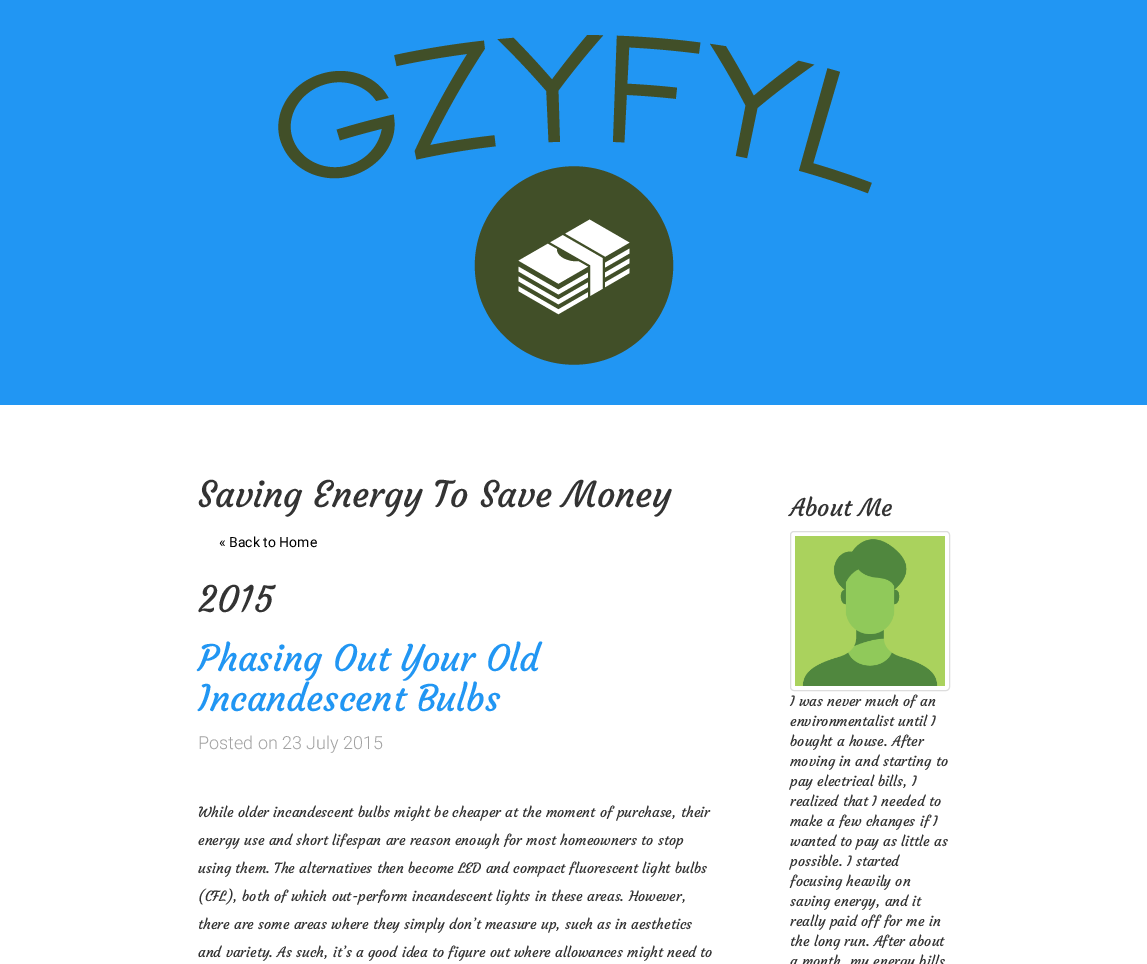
%!PS
<< /PageSize [1147 964] >> setpagedevice
/rgb { 3 { 255 div 3 1 roll } repeat setrgbcolor } def
/font { [ exch dup neg 0 0 3 -1 roll 0 0 ] selectfont } def
/text { moveto show } def
/roundrect { 5 dict begin { /r /h /w /y /x } { exch def } forall
  x r add y moveto x w add y 2 copy h add r arct x w add y h add x 1 index r arct
  x y h add x y r arct x y 2 copy exch w add exch r arct closepath end } def
/picture { 5 dict begin { /h /w /y /x /name } { exch def } forall
  gsave x y translate w h scale
  w h 8 [w 0 0 h 0 0] name (r) file false 3 colorimage grestore end } def
0 964 translate 1 -1 scale
4 setmiterlimit
255 255 255 rgb
0 0 1147 964 rectfill
33 150 243 rgb
0 0 1147 405 rectfill
(img_01.rgb) 278 35 594 330 picture
221 221 221 rgb
790.5 531.5 159 159 3.5 roundrect stroke
(img_02.rgb) 795 536 150 150 picture
/Courgette-Regular 36 font
51 51 51 rgb
(Saving Energy To Save Money) 198 507 text
/Roboto-Regular 14 font
0 0 0 rgb
(« Back to Home) 219 547 text
/Courgette-Regular 36 font
51 51 51 rgb
(2015) 198 612 text
33 150 243 rgb
(Phasing Out Your Old) 198 671 text
(Incandescent Bulbs) 198 711 text
/Roboto-Light 18 font
162 162 162 rgb
(Posted on 23 July 2015) 198 749 text
/Courgette-Regular 14 font
51 51 51 rgb
(While older incandescent bulbs might be cheaper at the moment of purchase, their) 198 817 text
(energy use and short lifespan are reason enough for most homeowners to stop) 198 845 text
(using them. The alternatives then become LED and compact fluorescent light bulbs) 198 873 text
(\(CFL\), both of which out-perform incandescent lights in these areas. However,) 198 901 text
(there are some areas where they simply don’t measure up, such as in aesthetics) 198 929 text
(and variety. As such, it’s a good idea to figure out where allowances might need to) 198 957 text
/Courgette-Regular 24 font
(About Me) 790 516 text
/Courgette-Regular 14 font
(I was never much of an) 790 706 text
(environmentalist until I) 790 726 text
(bought a house. After) 790 746 text
(moving in and starting to) 790 766 text
(pay electrical bills, I) 790 786 text
(realized that I needed to) 790 806 text
(make a few changes if I) 790 826 text
(wanted to pay as little as) 790 846 text
(possible. I started) 790 866 text
(focusing heavily on) 790 886 text
(saving energy, and it) 790 906 text
(really paid off for me in) 790 926 text
(the long run. After about) 790 946 text
(a month, my energy bills) 790 966 text
showpage
